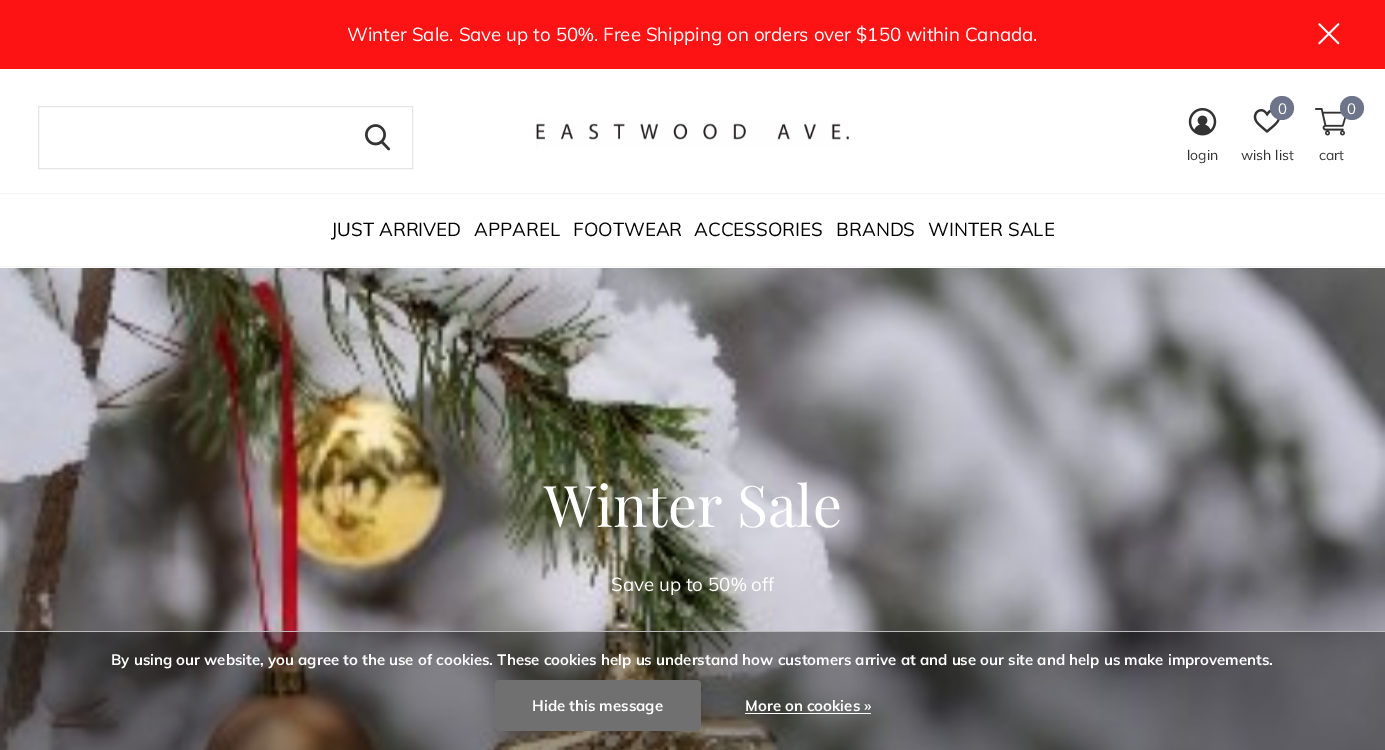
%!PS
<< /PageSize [1385 750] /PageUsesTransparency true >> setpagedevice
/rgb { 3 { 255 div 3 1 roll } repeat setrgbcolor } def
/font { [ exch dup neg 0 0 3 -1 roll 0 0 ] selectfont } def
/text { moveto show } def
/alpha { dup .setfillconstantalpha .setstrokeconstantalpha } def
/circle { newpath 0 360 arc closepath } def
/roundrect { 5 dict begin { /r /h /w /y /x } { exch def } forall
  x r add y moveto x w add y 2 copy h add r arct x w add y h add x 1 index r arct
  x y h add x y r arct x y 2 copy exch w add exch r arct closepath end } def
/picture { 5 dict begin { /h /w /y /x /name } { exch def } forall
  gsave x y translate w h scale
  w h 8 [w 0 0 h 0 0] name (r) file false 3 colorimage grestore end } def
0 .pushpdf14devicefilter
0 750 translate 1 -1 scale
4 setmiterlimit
255 255 255 rgb
0 0 1385 750 rectfill
253 19 19 rgb
0 0 1385 69 rectfill
(img_01.rgb) 1318 23 22 22 picture
229 229 229 rgb
38.5 106.5 374 62 rectstroke
(img_02.rgb) 365 124 25 27 picture
(img_03.rgb) 1188 108 29 28 picture
(img_04.rgb) 1253 109 27 24 picture
110 117 139 rgb
1282 108 12 circle fill
(img_05.rgb) 1315 108 31 28 picture
1352 108 12 circle fill
246 246 246 rgb
0 193 1385 1 rectfill
0 266 1385 1 rectfill
(img_06.rgb) 536 119 313 29 picture
(img_07.rgb) 0 268 1385 482 picture
0.4 alpha
0 0 0 rgb
0 632 1385 118 rectfill
1 alpha
187 187 187 rgb
0 631 1385 1 rectfill
112 112 112 rgb
495 680 206 51 4 roundrect fill
255 255 255 rgb
745 713 126 1 rectfill
/Muli-Regular 18.75 font
(Winter Sale. Save up to 50%. Free Shipping on orders over $150 within Canada.) 347 41 text
/Muli-Regular 14 font
51 51 51 rgb
(login) 1187 160 text
/Muli-Regular 15 font
255 255 255 rgb
(0) 1278 114 text
/Muli-Regular 14 font
51 51 51 rgb
(wish list) 1241 160 text
/Muli-Regular 15 font
255 255 255 rgb
(0) 1347 114 text
/Muli-Regular 14 font
51 51 51 rgb
(cart) 1319 160 text
/Muli-Regular 18.75 font
0 0 0 rgb
(JUST ARRIVED) 331 236 text
(APPAREL) 474 236 text
(FOOTWEAR) 573 236 text
(ACCESSORIES) 694 236 text
(BRANDS) 836 236 text
(WINTER SALE) 928 236 text
/PlayfairDisplay-Regular 57.5 font
255 255 255 rgb
(Winter Sale) 544 527 text
/Muli-Regular 18.75 font
(Save up to 50% off) 611 591 text
/Muli-Bold 15 font
(By using our website, you agree to the use of cookies. These cookies help us understand how customers arrive at and use our site and help us make improvements.) 111 665 text
(Hide this message) 532 711 text
(More on cookies ») 745 711 text
.poppdf14devicefilter showpage
